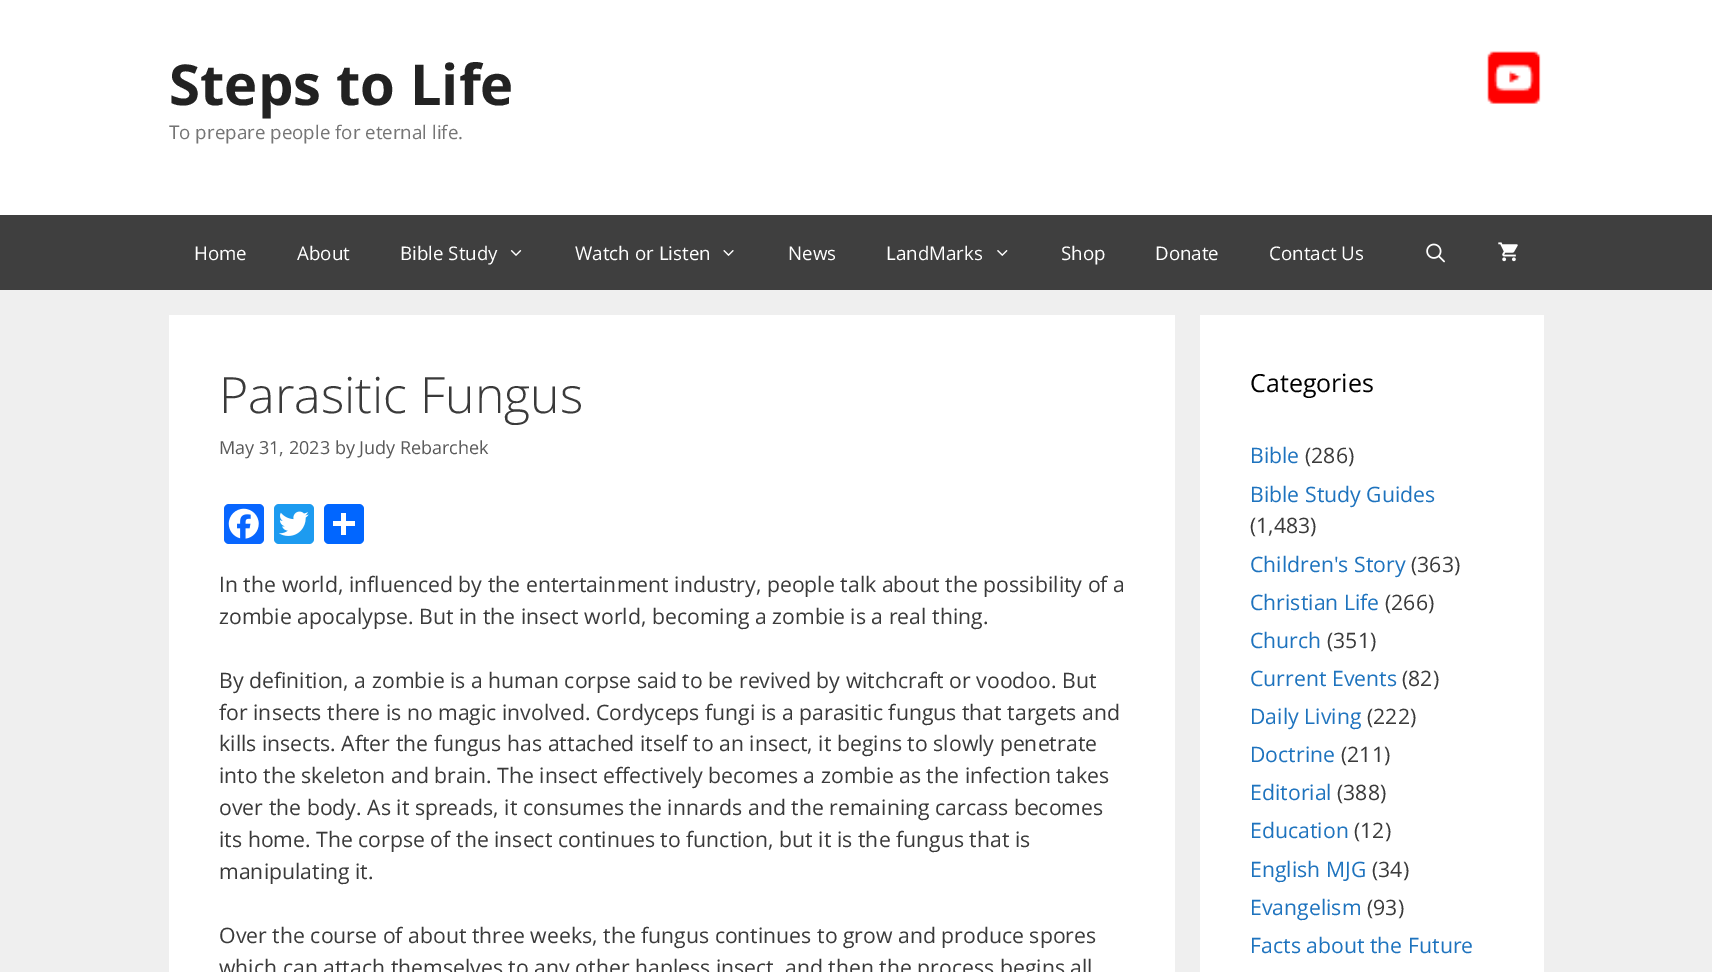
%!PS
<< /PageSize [1712 972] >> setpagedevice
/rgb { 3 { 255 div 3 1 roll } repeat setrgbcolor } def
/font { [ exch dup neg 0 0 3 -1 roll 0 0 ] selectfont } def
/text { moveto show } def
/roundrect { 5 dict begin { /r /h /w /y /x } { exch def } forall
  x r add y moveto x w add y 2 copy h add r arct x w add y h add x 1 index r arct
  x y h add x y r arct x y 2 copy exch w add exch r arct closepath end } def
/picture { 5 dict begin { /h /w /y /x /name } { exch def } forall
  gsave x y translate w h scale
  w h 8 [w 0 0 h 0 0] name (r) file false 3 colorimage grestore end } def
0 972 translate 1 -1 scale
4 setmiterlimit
239 239 239 rgb
0 0 1712 972 rectfill
255 255 255 rgb
0 0 1712 215 rectfill
(img_01.rgb) 1487 51 54 53 picture
63 63 63 rgb
0 215 1712 75 rectfill
(img_02.rgb) 510 250 12 6 picture
(img_03.rgb) 723 250 11 6 picture
(img_04.rgb) 997 250 11 6 picture
(img_05.rgb) 1426 243 19 20 picture
(img_06.rgb) 1498 242 20 20 picture
255 255 255 rgb
169 315 1006 657 rectfill
8 102 255 rgb
224 504 40 40 5 roundrect fill
(img_07.rgb) 228 508 31 31 picture
29 155 240 rgb
274 504 40 40 5 roundrect fill
(img_08.rgb) 279 511 30 25 picture
1 102 255 rgb
324 504 40 40 5 roundrect fill
255 255 255 rgb
341 513 5 22 rectfill
333 521 22 5 rectfill
1200 315 344 657 rectfill
/OpenSans-Bold 56.25 font
34 34 34 rgb
(Steps to Life) 169 105 text
/OpenSans-Regular 18.75 font
117 117 117 rgb
(To prepare people for eternal life.) 169 139 text
255 255 255 rgb
(Home) 194 260 text
(About) 297 260 text
(Bible Study) 400 260 text
(Watch or Listen) 575 260 text
(News) 788 260 text
(LandMarks) 886 260 text
(Shop) 1061 260 text
(Donate) 1155 260 text
(Contact Us) 1269 260 text
/OpenSans-Light 50 font
58 58 58 rgb
(Parasitic Fungus) 219 413 text
/OpenSans-Regular 18 font
89 89 89 rgb
(May 31, 2023 by Judy Rebarchek) 219 454 text
/OpenSans-Regular 21.25 font
58 58 58 rgb
(In the world, influenced by the entertainment industry, people talk about the possibility of a) 219 592 text
(zombie apocalypse. But in the insect world, becoming a zombie is a real thing.) 219 624 text
(By definition, a zombie is a human corpse said to be revived by witchcraft or voodoo. But) 219 688 text
(for insects there is no magic involved. Cordyceps fungi is a parasitic fungus that targets and) 219 720 text
(kills insects. After the fungus has attached itself to an insect, it begins to slowly penetrate) 219 751 text
(into the skeleton and brain. The insect effectively becomes a zombie as the infection takes) 219 783 text
(over the body. As it spreads, it consumes the innards and the remaining carcass becomes) 219 815 text
(its home. The corpse of the insect continues to function, but it is the fungus that is) 219 847 text
(manipulating it.) 219 879 text
(Over the course of about three weeks, the fungus continues to grow and produce spores) 219 943 text
(which can attach themselves to any other hapless insect, and then the process begins all) 219 975 text
/OpenSans-Regular 25 font
0 0 0 rgb
(Categories) 1250 392 text
/OpenSans-Regular 21.25 font
30 115 190 rgb
(Bible) 1250 463 text
58 58 58 rgb
(\(286\)) 1305 463 text
30 115 190 rgb
(Bible Study Guides) 1250 502 text
58 58 58 rgb
(\(1,483\)) 1250 533 text
30 115 190 rgb
(Children's Story) 1250 572 text
58 58 58 rgb
(\(363\)) 1411 572 text
30 115 190 rgb
(Christian Life) 1250 610 text
58 58 58 rgb
(\(266\)) 1385 610 text
30 115 190 rgb
(Church) 1250 648 text
58 58 58 rgb
(\(351\)) 1327 648 text
30 115 190 rgb
(Current Events) 1250 686 text
58 58 58 rgb
(\(82\)) 1402 686 text
30 115 190 rgb
(Daily Living) 1250 724 text
58 58 58 rgb
(\(222\)) 1367 724 text
30 115 190 rgb
(Doctrine) 1250 762 text
58 58 58 rgb
(\(211\)) 1341 762 text
30 115 190 rgb
(Editorial) 1250 800 text
58 58 58 rgb
(\(388\)) 1337 800 text
30 115 190 rgb
(Education) 1250 838 text
58 58 58 rgb
(\(12\)) 1354 838 text
30 115 190 rgb
(English MJG) 1250 877 text
58 58 58 rgb
(\(34\)) 1372 877 text
30 115 190 rgb
(Evangelism) 1250 915 text
58 58 58 rgb
(\(93\)) 1367 915 text
30 115 190 rgb
(Facts about the Future) 1250 953 text
showpage
